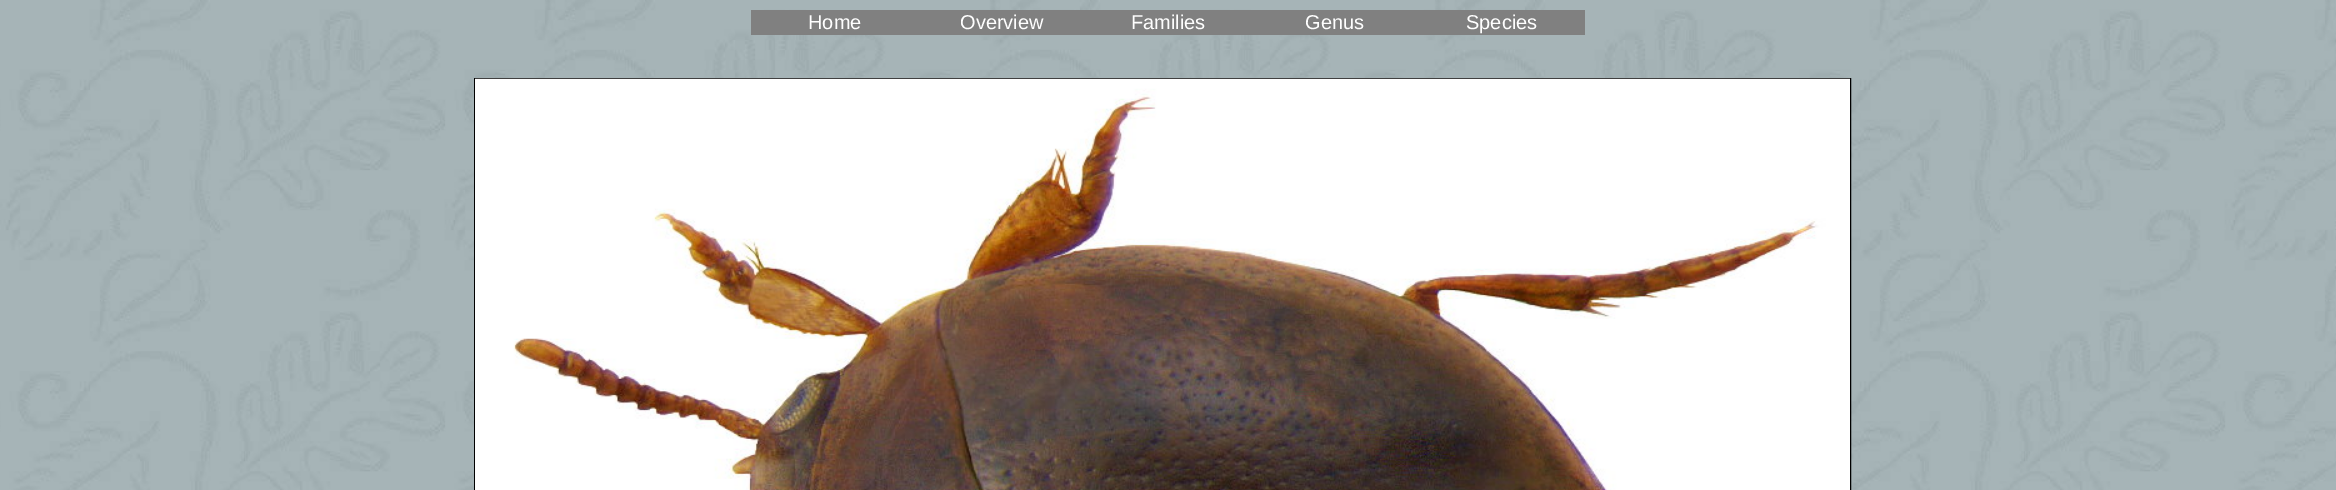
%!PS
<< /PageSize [2336 490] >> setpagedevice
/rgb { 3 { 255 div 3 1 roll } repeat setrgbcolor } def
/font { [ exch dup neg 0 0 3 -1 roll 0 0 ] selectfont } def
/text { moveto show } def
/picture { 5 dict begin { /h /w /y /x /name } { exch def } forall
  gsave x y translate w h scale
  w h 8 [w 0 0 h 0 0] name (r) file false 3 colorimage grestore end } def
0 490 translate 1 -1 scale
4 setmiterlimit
255 255 255 rgb
0 0 2336 490 rectfill
(img_01.rgb) 0 0 2336 490 picture
128 128 128 rgb
751 10 834 25 rectfill
0 0 0 rgb
474.5 78.5 1376 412 rectstroke
(img_02.rgb) 475 78 1375 412 picture
/LiberationSans-Regular 20 font
255 255 255 rgb
(Home) 808 29 text
(Overview) 960 29 text
(Families) 1131 29 text
(Genus) 1305 29 text
(Species) 1466 29 text
showpage
